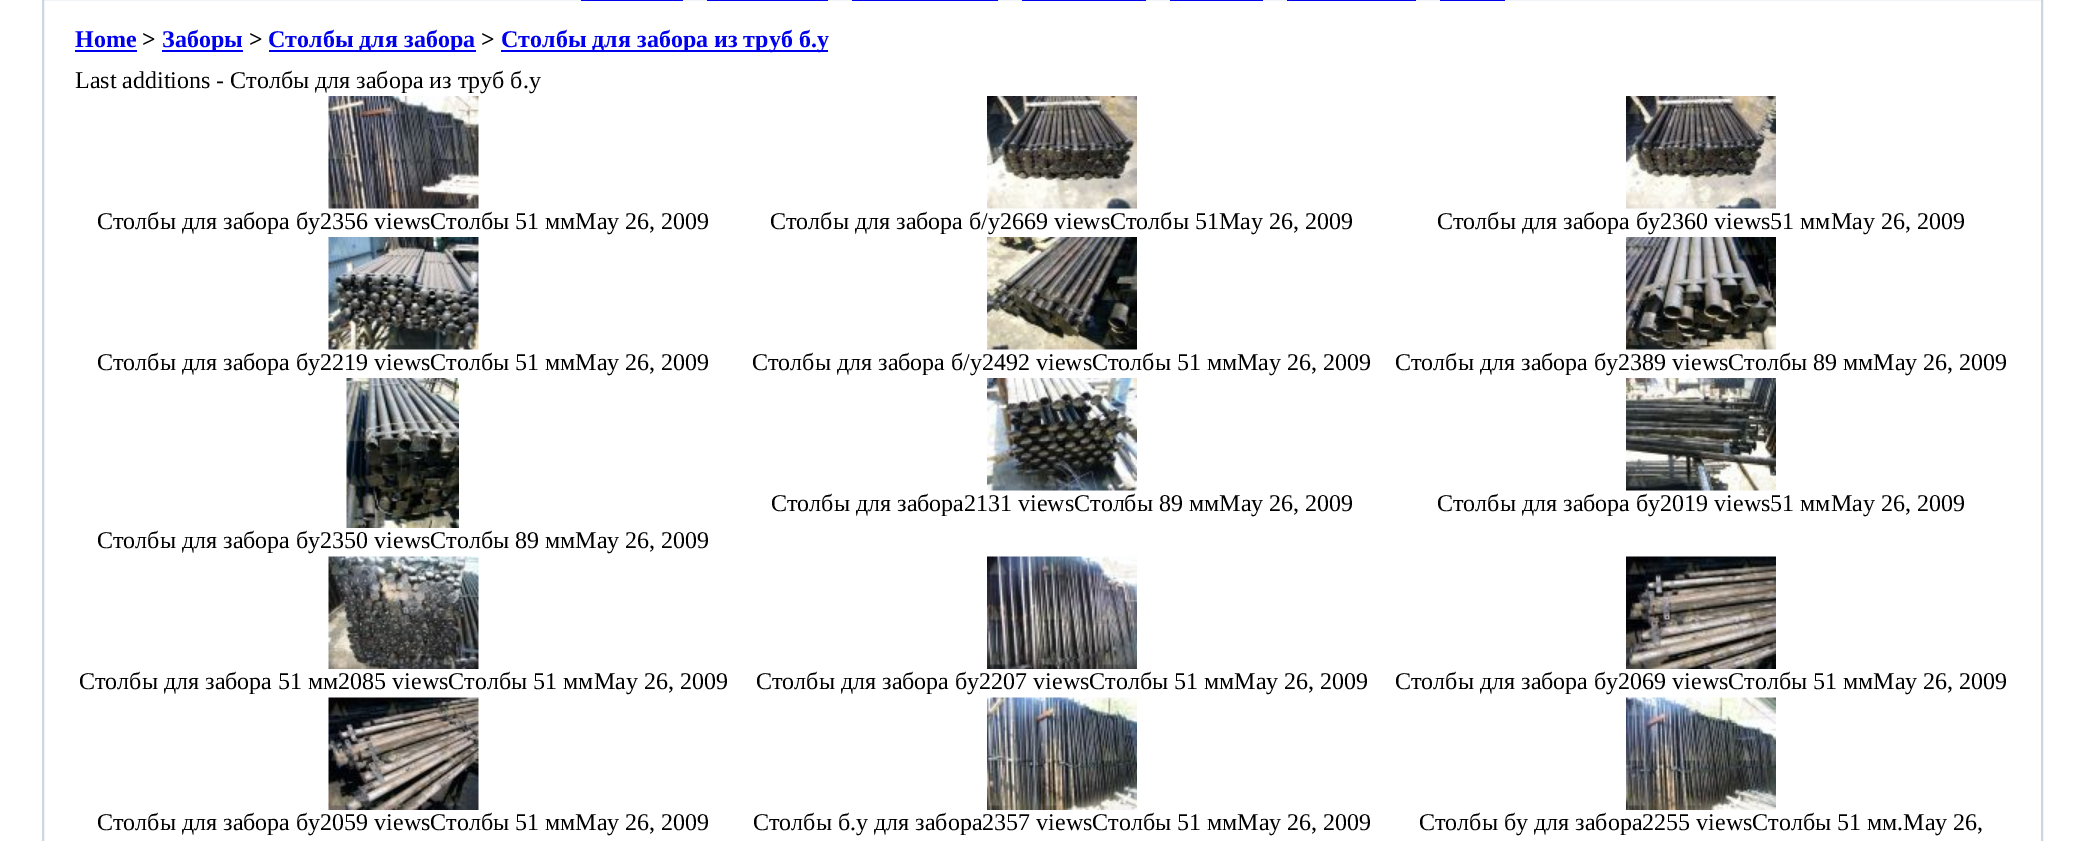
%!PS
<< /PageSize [2084 841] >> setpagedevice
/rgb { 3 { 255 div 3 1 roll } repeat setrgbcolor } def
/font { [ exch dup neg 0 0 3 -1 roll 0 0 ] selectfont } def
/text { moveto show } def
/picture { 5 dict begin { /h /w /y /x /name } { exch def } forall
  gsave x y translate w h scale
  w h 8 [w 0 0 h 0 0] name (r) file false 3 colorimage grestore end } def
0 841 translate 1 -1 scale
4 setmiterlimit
255 255 255 rgb
0 0 2084 841 rectfill
204 215 224 rgb
2 setlinewidth
43 -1 1999 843 rectstroke
0 0 238 rgb
581 0 102 1 rectfill
707 0 121 1 rectfill
852 0 146 1 rectfill
1022 0 124 1 rectfill
1170 0 93 1 rectfill
1287 0 129 1 rectfill
1440 0 65 1 rectfill
75 50 62 2 rectfill
162 50 81 2 rectfill
269 50 207 2 rectfill
501 50 327 2 rectfill
(img_01.rgb) 328 96 151 113 picture
(img_02.rgb) 987 96 150 113 picture
(img_03.rgb) 1626 96 150 113 picture
(img_04.rgb) 328 237 151 113 picture
(img_05.rgb) 987 237 150 113 picture
(img_06.rgb) 1626 237 150 113 picture
(img_07.rgb) 987 378 150 113 picture
(img_08.rgb) 1626 378 150 113 picture
(img_09.rgb) 346 378 113 150 picture
(img_10.rgb) 328 556 151 113 picture
(img_11.rgb) 987 556 150 113 picture
(img_12.rgb) 1626 556 150 113 picture
(img_13.rgb) 328 697 151 113 picture
(img_14.rgb) 987 697 150 113 picture
(img_15.rgb) 1626 697 150 113 picture
/LiberationSerif-Bold 24 font
(Home) 75 47 text
0 0 0 rgb
(>) 142 47 text
0 0 238 rgb
(Заборы) 162 47 text
0 0 0 rgb
(>) 249 47 text
0 0 238 rgb
(Столбы для забора) 268 47 text
0 0 0 rgb
(>) 481 47 text
0 0 238 rgb
(Столбы для забора из труб б.у) 501 47 text
/LiberationSerif-Regular 24 font
0 0 0 rgb
(Last additions - Столбы для забора из труб б.у) 75 88 text
(Столбы для забора бу2356 viewsСтолбы 51 ммMay 26, 2009) 97 229 text
(Столбы для забора б/у2669 viewsСтолбы 51May 26, 2009) 770 229 text
(Столбы для забора бу2360 views51 ммMay 26, 2009) 1437 229 text
(Столбы для забора бу2219 viewsСтолбы 51 ммMay 26, 2009) 97 370 text
(Столбы для забора б/у2492 viewsСтолбы 51 ммMay 26, 2009) 752 370 text
(Столбы для забора бу2389 viewsСтолбы 89 ммMay 26, 2009) 1395 370 text
(Столбы для забора2131 viewsСтолбы 89 ммMay 26, 2009) 771 511 text
(Столбы для забора бу2019 views51 ммMay 26, 2009) 1437 511 text
(Столбы для забора бу2350 viewsСтолбы 89 ммMay 26, 2009) 97 548 text
(Столбы для забора 51 мм2085 viewsСтолбы 51 ммMay 26, 2009) 79 689 text
(Столбы для забора бу2207 viewsСтолбы 51 ммMay 26, 2009) 756 689 text
(Столбы для забора бу2069 viewsСтолбы 51 ммMay 26, 2009) 1395 689 text
(Столбы для забора бу2059 viewsСтолбы 51 ммMay 26, 2009) 97 830 text
(Столбы б.у для забора2357 viewsСтолбы 51 ммMay 26, 2009) 753 830 text
(Столбы бу для забора2255 viewsСтолбы 51 мм.May 26,) 1419 830 text
showpage
